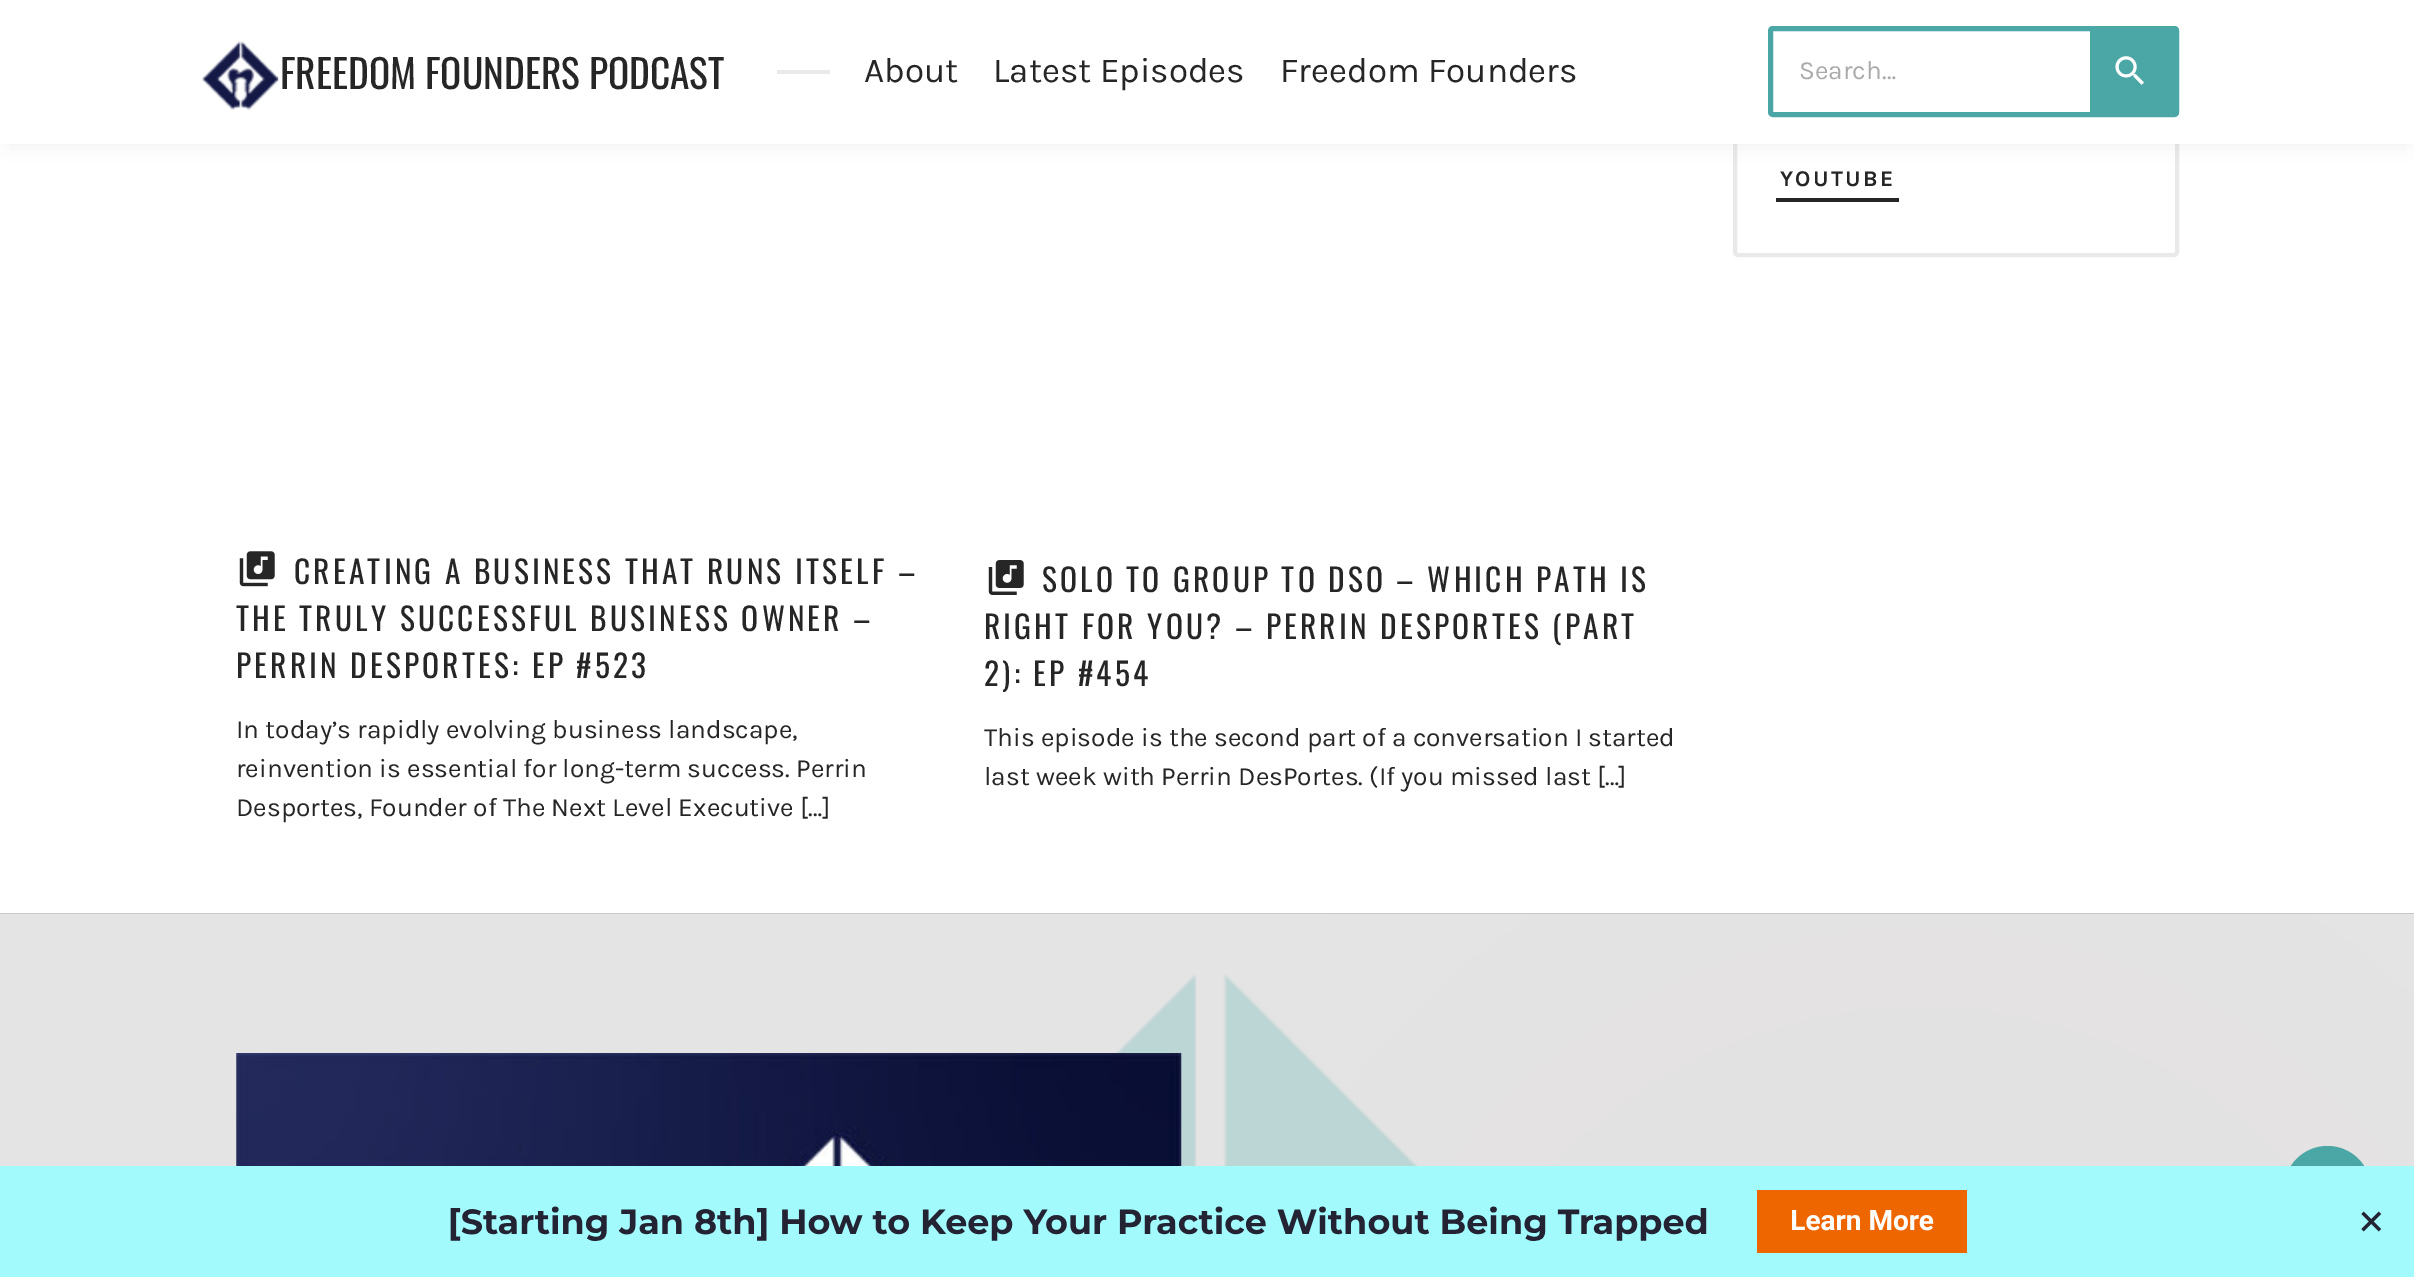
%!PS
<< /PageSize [2414 1277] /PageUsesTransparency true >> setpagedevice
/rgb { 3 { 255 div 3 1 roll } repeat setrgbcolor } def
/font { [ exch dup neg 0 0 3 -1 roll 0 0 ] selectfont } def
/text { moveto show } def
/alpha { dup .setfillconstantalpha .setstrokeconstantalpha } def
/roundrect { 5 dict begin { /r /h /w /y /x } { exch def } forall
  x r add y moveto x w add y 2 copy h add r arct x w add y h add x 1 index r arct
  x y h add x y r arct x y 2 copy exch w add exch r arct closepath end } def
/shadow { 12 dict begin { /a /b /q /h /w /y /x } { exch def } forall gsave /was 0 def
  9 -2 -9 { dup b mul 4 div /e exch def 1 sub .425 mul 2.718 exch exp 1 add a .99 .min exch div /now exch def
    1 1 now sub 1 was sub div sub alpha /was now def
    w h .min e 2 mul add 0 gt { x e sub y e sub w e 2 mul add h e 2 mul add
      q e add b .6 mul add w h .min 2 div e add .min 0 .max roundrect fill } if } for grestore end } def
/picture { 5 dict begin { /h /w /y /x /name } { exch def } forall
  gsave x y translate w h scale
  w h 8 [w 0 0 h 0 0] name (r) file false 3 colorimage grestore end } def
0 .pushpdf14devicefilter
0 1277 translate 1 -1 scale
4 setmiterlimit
255 255 255 rgb
0 0 2414 1277 rectfill
233 233 233 rgb
4 setlinewidth
1735 -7 442 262 3 roundrect stroke
32 32 32 rgb
9 18 2397 126 0 9 0.07 shadow
255 255 255 rgb
0 0 2414 144 rectfill
(img_01.rgb) 202 41 77 69 picture
233 233 233 rgb
777 70 53 4 rectfill
74 167 166 rgb
5 setlinewidth
1770.5 28.5 406 86 2.5 roundrect stroke
2090 26 89 91 5 roundrect fill
(img_02.rgb) 2115 56 29 29 picture
38 38 38 rgb
1776 198 123 4 rectfill
(img_03.rgb) 239 551 36 36 picture
(img_04.rgb) 988 560 36 35 picture
(img_05.rgb) 0 913 2414 253 picture
(img_06.rgb) 236 1053 946 113 picture
74 167 166 rgb
2284 1146 87 88 43.5 roundrect fill
(img_07.rgb) 0 1166 2414 111 picture
/Oswald-Regular 39.4 font
38 38 38 rgb
(FREEDOM FOUNDERS PODCAST) 280 89 text
/Karla-Regular 35 font
(About) 864 82 text
(Latest Episodes) 993 82 text
(Freedom Founders) 1280 82 text
/Karla-Regular 26.25 font
170 170 170 rgb
(Search…) 1799 79 text
/Karla-Bold 22.5 font
38 38 38 rgb
1780 186 moveto 2.25 0 (YOUTUBE) ashow
/Oswald-Regular 31.5 font
294 584 moveto 3.15 0 (CREATING A BUSINESS THAT RUNS ITSELF –) ashow
236 631 moveto 3.15 0 (THE TRULY SUCCESSFUL BUSINESS OWNER –) ashow
236 678 moveto 3.15 0 (PERRIN DESPORTES: EP #523) ashow
/Karla-Regular 26.25 font
(In today’s rapidly evolving business landscape,) 236 738 text
(reinvention is essential for long-term success. Perrin) 236 777 text
(Desportes, Founder of The Next Level Executive […]) 236 816 text
/Oswald-Regular 31.5 font
1042 592 moveto 3.15 0 (SOLO TO GROUP TO DSO – WHICH PATH IS) ashow
984 639 moveto 3.15 0 (RIGHT FOR YOU? – PERRIN DESPORTES \(PART) ashow
984 686 moveto 3.15 0 (2\): EP #454) ashow
/Karla-Regular 26.25 font
(This episode is the second part of a conversation I started) 984 746 text
(last week with Perrin DesPortes. \(If you missed last […]) 984 785 text
.poppdf14devicefilter showpage
